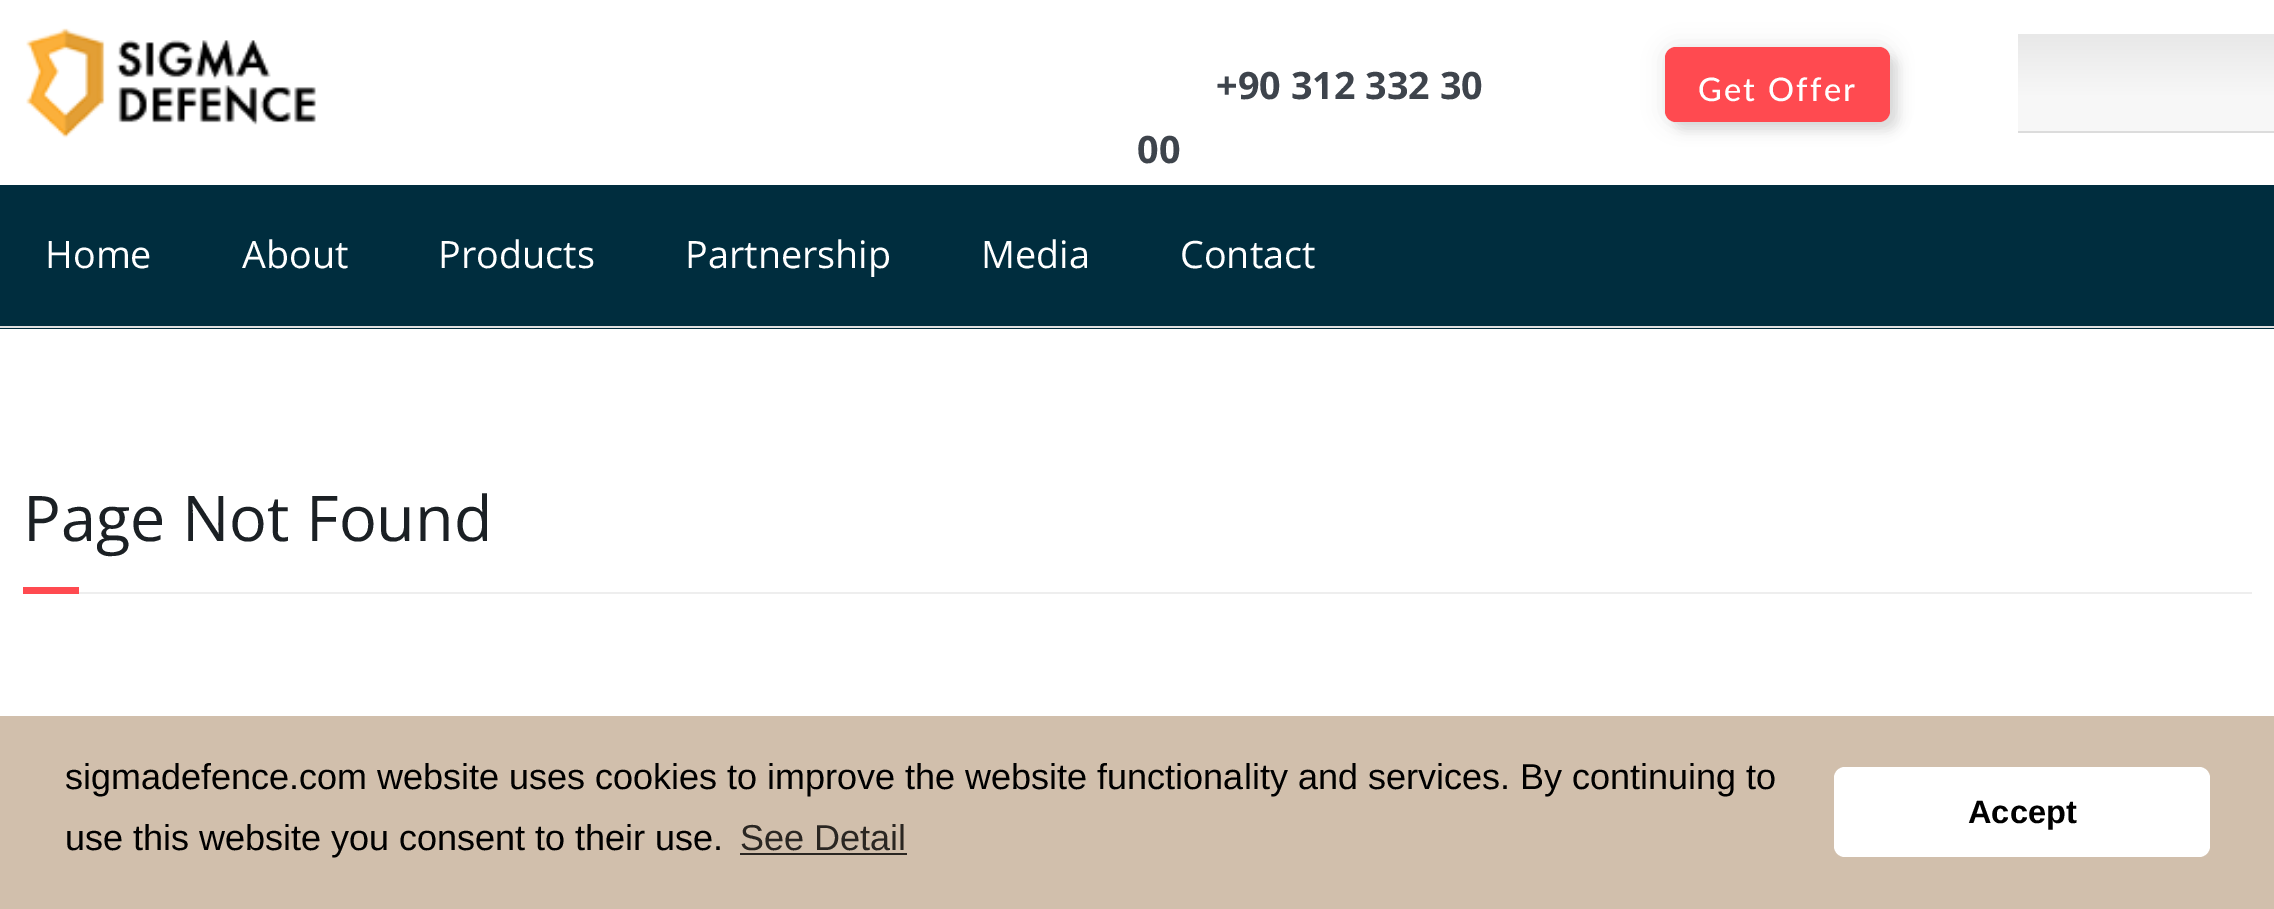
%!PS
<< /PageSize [2274 909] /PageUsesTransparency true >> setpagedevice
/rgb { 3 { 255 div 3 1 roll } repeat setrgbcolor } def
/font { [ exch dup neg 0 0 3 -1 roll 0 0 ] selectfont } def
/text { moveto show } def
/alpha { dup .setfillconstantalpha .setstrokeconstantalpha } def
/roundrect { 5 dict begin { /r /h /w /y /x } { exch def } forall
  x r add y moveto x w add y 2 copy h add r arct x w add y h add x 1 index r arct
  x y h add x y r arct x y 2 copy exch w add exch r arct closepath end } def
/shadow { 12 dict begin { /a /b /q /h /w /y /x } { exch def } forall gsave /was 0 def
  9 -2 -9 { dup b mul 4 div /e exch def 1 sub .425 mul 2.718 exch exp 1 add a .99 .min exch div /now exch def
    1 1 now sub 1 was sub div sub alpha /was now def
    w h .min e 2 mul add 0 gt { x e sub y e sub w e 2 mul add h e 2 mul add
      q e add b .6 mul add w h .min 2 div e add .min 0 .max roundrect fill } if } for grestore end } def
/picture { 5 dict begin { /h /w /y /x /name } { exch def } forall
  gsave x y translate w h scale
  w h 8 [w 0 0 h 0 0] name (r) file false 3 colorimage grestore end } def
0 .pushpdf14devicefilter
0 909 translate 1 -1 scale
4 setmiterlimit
255 255 255 rgb
0 0 2274 909 rectfill
(img_01.rgb) 26 28 290 110 picture
0 0 0 rgb
1674 56 225 75 11 5.5 0.1 shadow
1665 47 225 75 11 11 0.1 shadow
255 74 80 rgb
1665 47 225 75 11 roundrect fill
gsave 2018 34 moveto 256 0 rlineto 0 97 rlineto -256 0 rlineto closepath clip newpath
<< /ShadingType 2 /ColorSpace /DeviceRGB /Coords [2147 131 2147 34] /Extend [true true] /Function << /FunctionType 3 /Domain [0 1] /Functions [<< /FunctionType 2 /Domain [0 1] /C0 [0.969 0.969 0.969] /C1 [0.969 0.969 0.969] /N 1 >> << /FunctionType 2 /Domain [0 1] /C0 [0.969 0.969 0.969] /C1 [0.91 0.91 0.91] /N 1 >>] /Bounds [0.35] /Encode [0 1 0 1] >> >> shfill grestore
220 220 220 rgb
2018 131 256 2 rectfill
0 45 62 rgb
0 185 2274 144 rectfill
224 224 224 rgb
0 326 2274 2 rectfill
255 74 80 rgb
23 587 56 7 rectfill
238 238 238 rgb
79 592 2173 2 rectfill
209 191 172 rgb
0 716 2274 193 rectfill
42 38 34 rgb
740 853 167 2 rectfill
255 255 255 rgb
1834 767 376 90 11 roundrect fill
/OpenSans-Bold 37.75 font
62 68 76 rgb
(+90 312 332 30) 1216 99 text
(00) 1137 163 text
/Lato-Medium 32.5 font
255 255 255 rgb
1698 101 moveto 2.25 0 (Get Offer) ashow
/OpenSans-Regular 37.75 font
(Home) 45 268 text
(About) 242 268 text
(Products) 438 268 text
(Partnership) 685 268 text
(Media) 981 268 text
(Contact) 1180 268 text
/OpenSans-Regular 63 font
27 32 36 rgb
(Page Not Found) 23 541 text
/LiberationSans-Regular 36 font
0 0 0 rgb
(sigmadefence.com website uses cookies to improve the website functionality and services. By continuing to) 65 789 text
(use this website you consent to their use.) 65 850 text
42 38 34 rgb
(See Detail) 740 850 text
/LiberationSans-Bold 32.5 font
0 0 0 rgb
(Accept) 1968 823 text
.poppdf14devicefilter showpage
